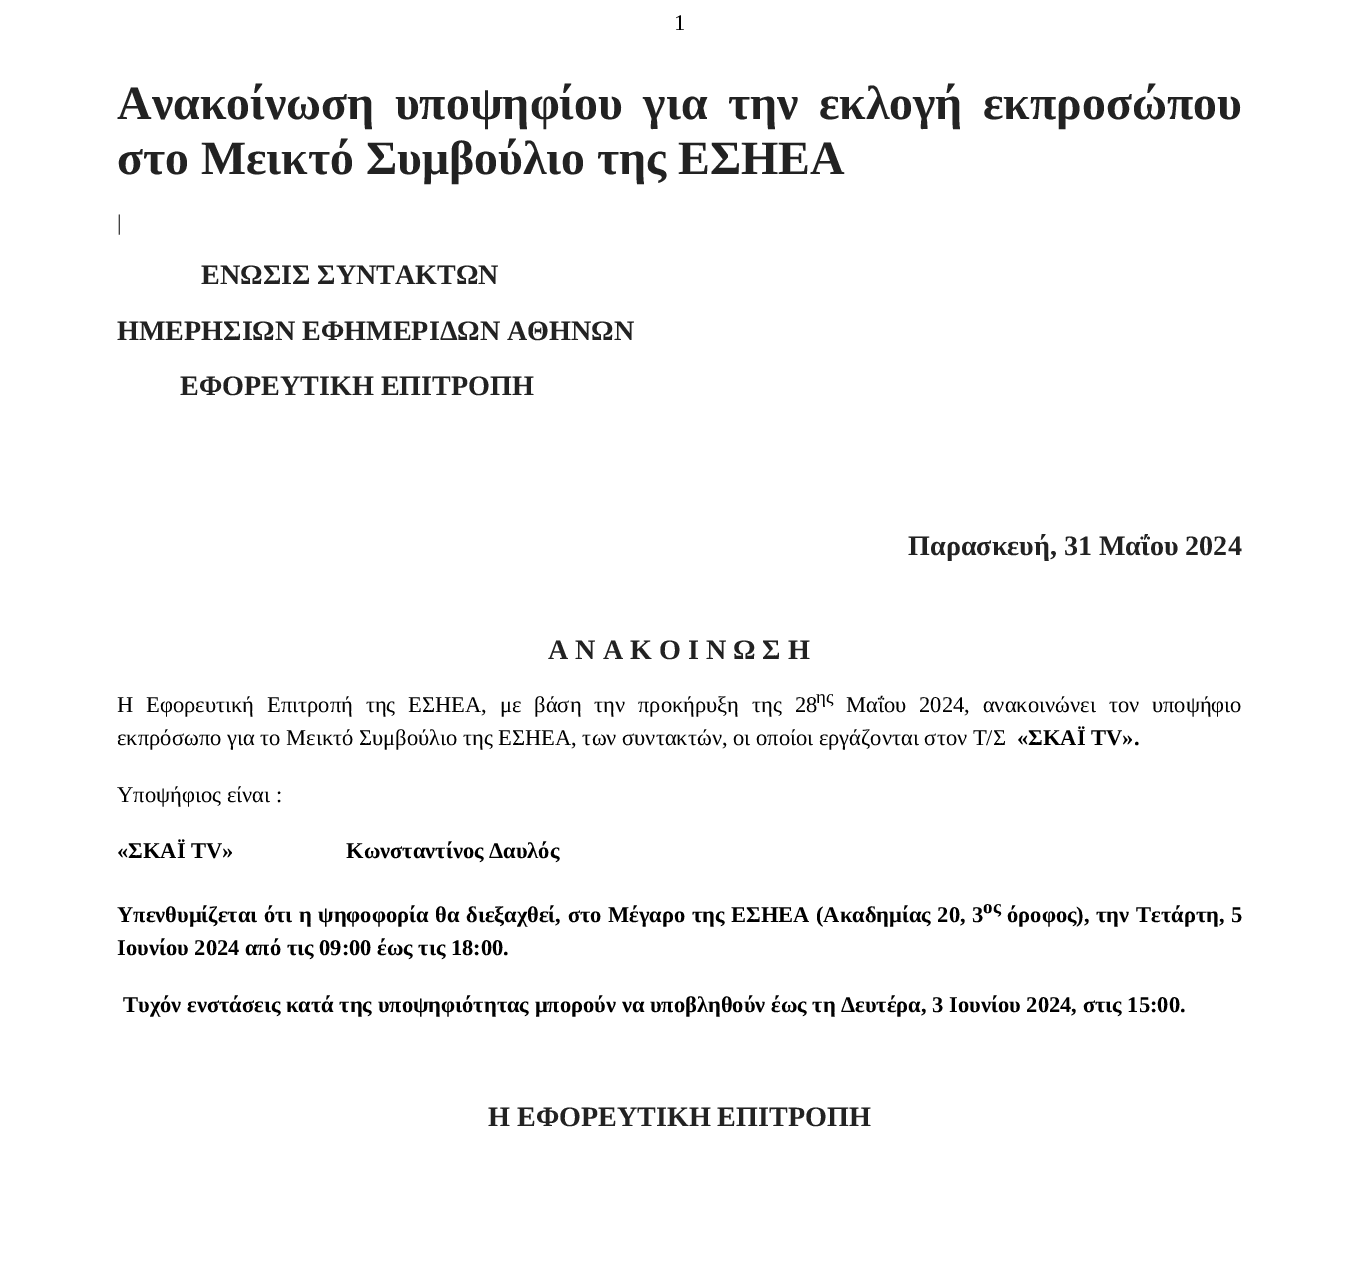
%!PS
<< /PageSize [1358 1286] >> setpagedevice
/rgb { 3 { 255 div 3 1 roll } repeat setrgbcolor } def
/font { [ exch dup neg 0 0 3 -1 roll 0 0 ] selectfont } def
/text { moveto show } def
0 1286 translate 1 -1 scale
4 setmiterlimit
255 255 255 rgb
0 0 1358 1286 rectfill
/LiberationSerif-Regular 22.5 font
0 0 0 rgb
(1) 674 30 text
/LiberationSerif-Bold 47.8 font
34 34 34 rgb
117 119 moveto 8.5 0 32 (Ανακοίνωση υποψηφίου για την εκλογή εκπροσώπου) widthshow
(στο Μεικτό Συμβούλιο της ΕΣΗΕΑ) 117 174 text
/LiberationSerif-Regular 22.5 font
0 0 0 rgb
(|) 117 230 text
/LiberationSerif-Bold 28.1 font
34 34 34 rgb
(ΕΝΩΣΙΣ ΣΥΝΤΑΚΤΩΝ) 201 284 text
(ΗΜΕΡΗΣΙΩΝ ΕΦΗΜΕΡΙΔΩΝ ΑΘΗΝΩΝ) 117 340 text
(ΕΦΟΡΕΥΤΙΚΗ ΕΠΙΤΡΟΠΗ) 180 395 text
(Παρασκευή, 31 Μαΐου 2024) 908 555 text
(Α Ν Α Κ Ο Ι Ν Ω Σ Η) 548 659 text
/LiberationSerif-Regular 22.5 font
0 0 0 rgb
117 712 moveto 7.25 0 32 (Η Εφορευτική Επιτροπή της ΕΣΗΕΑ, με βάση την προκήρυξη της 28) widthshow
/LiberationSerif-Regular 19 font
(ης) 816 703 text
/LiberationSerif-Regular 22.5 font
846 712 moveto 7.25 0 32 (Μαΐου 2024, ανακοινώνει τον υποψήφιο) widthshow
(εκπρόσωπο για το Μεικτό Συμβούλιο της ΕΣΗΕΑ, των συντακτών, οι οποίοι εργάζονται στον Τ/Σ) 117 745 text
/LiberationSerif-Bold 22.5 font
(«ΣΚΑΪ TV».) 1017 745 text
/LiberationSerif-Regular 22.5 font
(Υποψήφιος είναι :) 117 802 text
/LiberationSerif-Bold 22.5 font
(«ΣΚΑΪ TV»                    Κωνσταντίνος Δαυλός) 117 858 text
117 922 moveto 0.9 0 32 (Υπενθυμίζεται ότι η ψηφοφορία θα διεξαχθεί, στο Μέγαρο της ΕΣΗΕΑ \(Ακαδημίας 20, 3) widthshow
/LiberationSerif-Bold 19 font
(ος) 983 913 text
/LiberationSerif-Bold 22.5 font
1007 922 moveto 0.9 0 32 (όροφος\), την) widthshow
1136 922 moveto 1 0 32 (Τετάρτη, 5) widthshow
(Ιουνίου 2024 από τις 09:00 έως τις 18:00.) 117 955 text
(Τυχόν ενστάσεις κατά της υποψηφιότητας μπορούν να υποβληθούν έως τη Δευτέρα, 3 Ιουνίου 2024, στις 15:00.) 123 1012 text
/LiberationSerif-Bold 28.1 font
34 34 34 rgb
(Η ΕΦΟΡΕΥΤΙΚΗ ΕΠΙΤΡΟΠΗ) 488 1126 text
showpage
